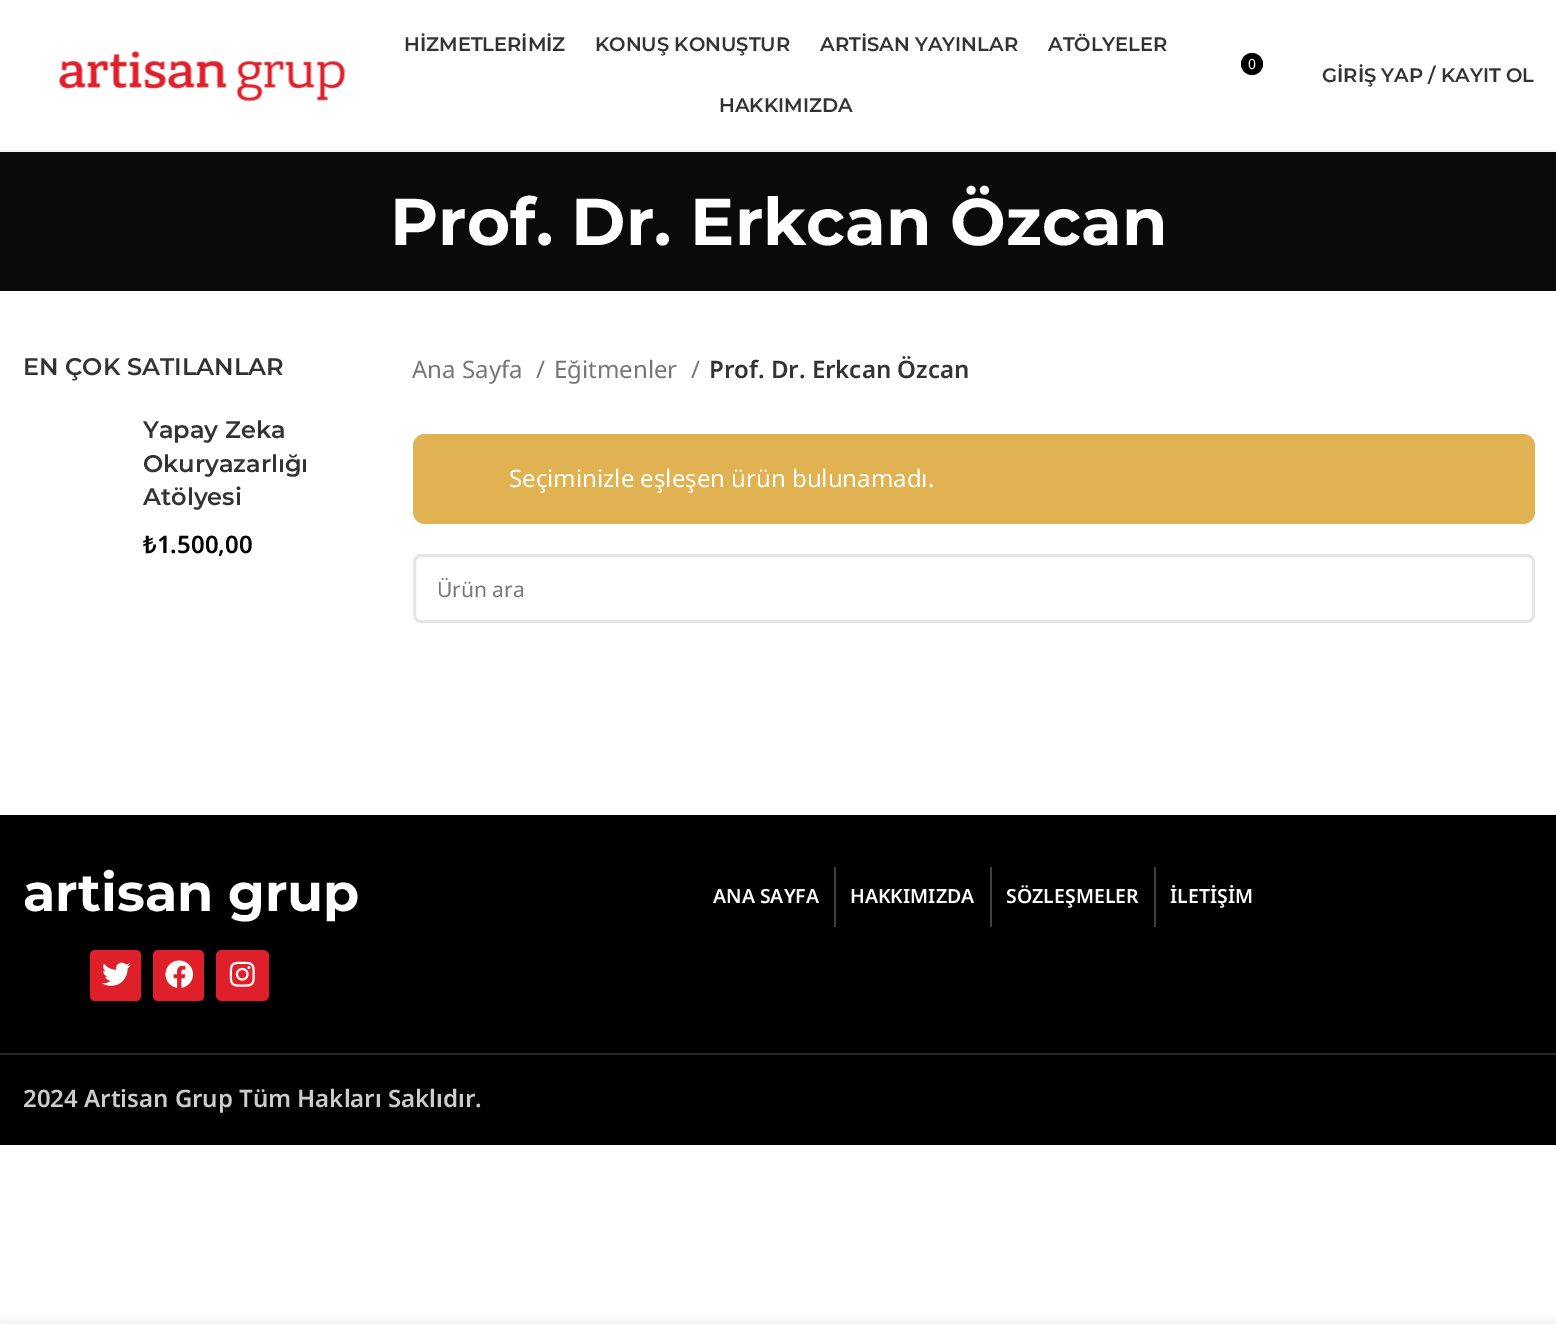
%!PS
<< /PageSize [1556 1324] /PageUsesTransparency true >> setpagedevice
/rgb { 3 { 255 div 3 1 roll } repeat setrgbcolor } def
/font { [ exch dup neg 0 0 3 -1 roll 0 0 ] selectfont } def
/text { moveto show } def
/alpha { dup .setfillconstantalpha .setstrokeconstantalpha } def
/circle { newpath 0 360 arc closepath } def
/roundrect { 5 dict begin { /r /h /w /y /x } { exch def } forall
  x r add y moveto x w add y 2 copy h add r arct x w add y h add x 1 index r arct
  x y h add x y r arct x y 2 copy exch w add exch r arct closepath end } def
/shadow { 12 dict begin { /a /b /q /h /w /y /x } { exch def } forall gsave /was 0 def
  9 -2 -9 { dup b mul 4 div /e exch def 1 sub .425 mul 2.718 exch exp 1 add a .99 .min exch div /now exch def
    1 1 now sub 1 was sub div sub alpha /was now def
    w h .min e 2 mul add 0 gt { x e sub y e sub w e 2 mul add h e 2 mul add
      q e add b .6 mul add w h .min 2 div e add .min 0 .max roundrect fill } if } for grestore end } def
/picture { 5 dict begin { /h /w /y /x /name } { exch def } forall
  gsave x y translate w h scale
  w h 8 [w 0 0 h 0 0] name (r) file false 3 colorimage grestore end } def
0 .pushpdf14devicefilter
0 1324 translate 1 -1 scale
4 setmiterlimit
255 255 255 rgb
0 0 1556 1324 rectfill
242 242 242 rgb
0 150 1556 2 rectfill
(img_01.rgb) 59 51 286 50 picture
0 0 0 rgb
1252 64 11 circle fill
10 10 10 rgb
0 152 1556 139 rectfill
224 178 82 rgb
413 434 1122 90 12 roundrect fill
230 230 230 rgb
3 setlinewidth
414.5 555.5 1119 66 6.5 roundrect stroke
0 0 0 rgb
0 815 1556 330 rectfill
223 31 41 rgb
90 950 51 51 5 roundrect fill
(img_02.rgb) 102 962 29 24 picture
153 950 51 51 5 roundrect fill
(img_03.rgb) 165 960 29 28 picture
216 950 53 51 6 roundrect fill
(img_04.rgb) 229 961 26 26 picture
64 64 64 rgb
834 867 2 60 rectfill
990 867 2 60 rectfill
1154 867 2 60 rectfill
38 38 38 rgb
0 1053 1556 2 rectfill
0 0 0 rgb
0 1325 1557 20 0 7 0.14 shadow
/Montserrat-SemiBold 19.5 font
51 51 51 rgb
(HİZMETLERİMİZ) 404 51 text
(KONUŞ KONUŞTUR) 595 51 text
(ARTİSAN YAYINLAR) 820 51 text
(ATÖLYELER) 1048 51 text
(HAKKIMIZDA) 719 112 text
/NotoSans-Regular 14 font
255 255 255 rgb
(0) 1248 69 text
/Montserrat-SemiBold 19.5 font
51 51 51 rgb
(GİRİŞ YAP / KAYIT OL) 1322 82 text
/Montserrat-Bold 66 font
255 255 255 rgb
(Prof. Dr. Erkcan Özcan) 390 245 text
/Montserrat-SemiBold 24 font
51 51 51 rgb
(EN ÇOK SATILANLAR) 23 375 text
(Yapay Zeka) 143 438 text
(Okuryazarlığı) 143 472 text
(Atölyesi) 143 505 text
/NotoSans-SemiBold 24 font
0 0 0 rgb
(₺1.500,00) 143 553 text
/NotoSans-Regular 24 font
119 119 119 rgb
(Ana Sayfa) 412 378 text
(/) 536 378 text
(Eğitmenler) 554 378 text
(/) 691 378 text
/NotoSans-SemiBold 24 font
51 51 51 rgb
(Prof. Dr. Erkcan Özcan) 709 378 text
/NotoSans-Regular 24 font
255 255 255 rgb
(Seçiminizle eşleşen ürün bulunamadı.) 509 487 text
/NotoSans-Regular 21 font
119 119 119 rgb
(Ürün ara) 437 597 text
/Montserrat-Bold 52.5 font
255 255 255 rgb
(artisan grup) 23 911 text
/NotoSans-SemiBold 19.5 font
(ANA SAYFA) 713 903 text
(HAKKIMIZDA) 850 903 text
(SÖZLEŞMELER) 1006 903 text
(İLETİŞİM) 1170 903 text
/NotoSans-SemiBold 24 font
204 204 204 rgb
(2024 Artisan Grup Tüm Hakları Saklıdır.) 23 1107 text
.poppdf14devicefilter showpage
